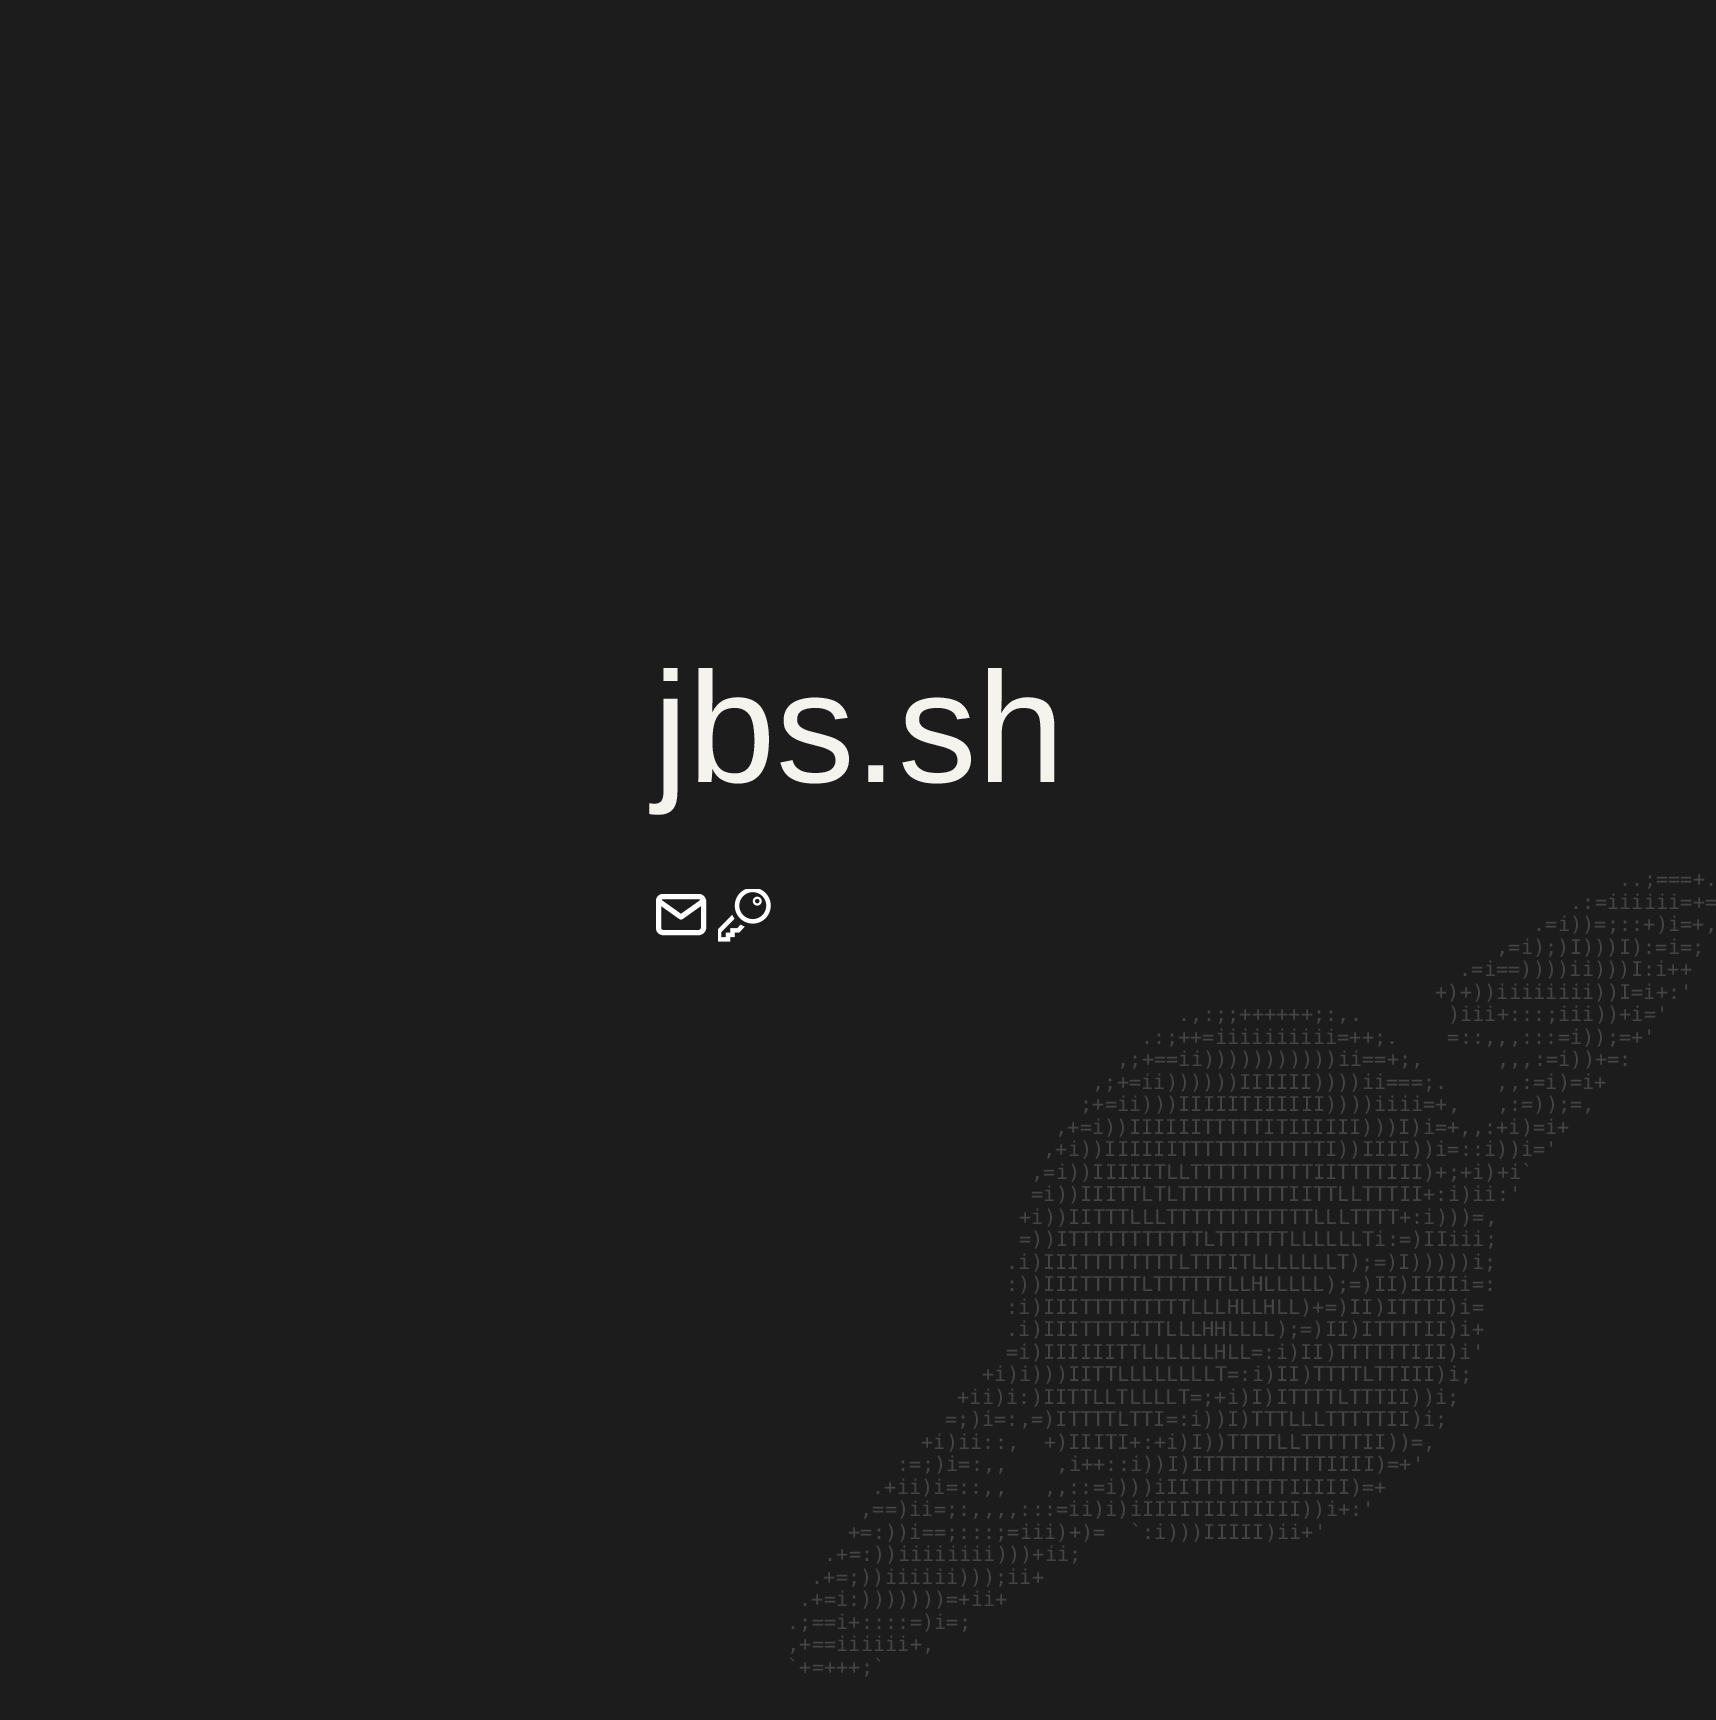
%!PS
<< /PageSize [1716 1720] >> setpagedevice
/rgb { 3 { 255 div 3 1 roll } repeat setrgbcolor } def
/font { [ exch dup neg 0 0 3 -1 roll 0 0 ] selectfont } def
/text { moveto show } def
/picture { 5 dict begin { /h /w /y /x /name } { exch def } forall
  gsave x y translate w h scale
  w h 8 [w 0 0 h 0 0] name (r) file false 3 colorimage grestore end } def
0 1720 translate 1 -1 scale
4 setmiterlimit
28 28 28 rgb
0 0 1716 1720 rectfill
255 255 255 rgb
5 setlinewidth
1 setlinecap
1 setlinejoin
663 896.5 moveto 36 0 rlineto 2 0 4.5 2 4.5 4.5 rcurveto 0 27 rlineto 0 2.5 -2.5 4.5 -4.5 4.5 rcurveto -36 0 rlineto -2.5 0 -4.5 -2 -4.5 -4.5 rcurveto 0 -27 rlineto 0 -2.5 2 -4.5 4.5 -4.5 rcurveto closepath 703.5 901 moveto -22.5 16 rlineto -22.5 -16 rlineto stroke
(img_01.rgb) 718 889 53 53 picture
/LiberationSans-Regular 157.5 font
245 243 237 rgb
(jbs.sh) 653 782 text
/DejaVuSansMono-Regular 20.35 font
68 68 68 rgb
(..;===+.) 1619 886 text
(.:=iiiiii=+=) 1570 909 text
(.=i\)\)=;::+\)i=+,) 1533 931 text
(,=i\);\)I\)\)\)I\):=i=;) 1496 954 text
(.=i==\)\)\)\)ii\)\)\)I:i++) 1459 976 text
(+\)+\)\)iiiiiiii\)\)I=i+:') 1435 999 text
(.,:;;++++++;:,.       \)iii+:::;iii\)\)+i=') 1178 1021 text
(.:;++=iiiiiiiiii=++;.    =::,,,:::=i\)\);=+') 1141 1044 text
(,;+==ii\)\)\)\)\)\)\)\)\)\)\)ii==+;,      ,,,:=i\)\)+=:) 1117 1066 text
(,;+=ii\)\)\)\)\)\)IIIIII\)\)\)\)ii===;.    ,,:=i\)=i+) 1092 1089 text
(;+=ii\)\)\)IIIIITIIIIII\)\)\)\)iiii=+,   ,:=\)\);=,) 1080 1111 text
(,+=i\)\)IIIIIITTTTTITIIIIII\)\)\)I\)i=+,,:+i\)=i+) 1055 1134 text
(,+i\)\)IIIIIITTTTTTTTTTTTI\)\)IIII\)\)i=::i\)\)i=') 1043 1156 text
(,=i\)\)IIIIITLLTTTTTTTTTTIITTTTIII\)+;+i\)+i`) 1031 1179 text
(=i\)\)IIITTLTLTTTTTTTTTIITTLLTTTII+:i\)ii:') 1031 1201 text
(+i\)\)IITTTLLLTTTTTTTTTTTTLLLTTTT+:i\)\)\)=,) 1019 1224 text
(=\)\)ITTTTTTTTTTTLTTTTTTLLLLLLTi:=\)IIiii;) 1019 1246 text
(.i\)IIITTTTTTTTLTTTITLLLLLLLT\);=\)I\)\)\)\)\)i;) 1006 1269 text
(:\)\)IIITTTTTLTTTTTTLLHLLLLL\);=\)II\)IIIIi=:) 1006 1291 text
(:i\)IIITTTTTTTTTLLLHLLHLL\)+=\)II\)ITTTI\)i=) 1006 1314 text
(.i\)IIITTTTITTLLLHHLLLL\);=\)II\)ITTTTII\)i+) 1006 1336 text
(=i\)IIIIIITTLLLLLLHLL=:i\)II\)TTTTTTIII\)i') 1006 1359 text
(+i\)i\)\)\)IITTLLLLLLLLT=:i\)II\)TTTTLTTIII\)i;) 982 1381 text
(+ii\)i:\)IITTLLTLLLLT=;+i\)I\)ITTTTLTTTII\)\)i;) 957 1404 text
(=;\)i=:,=\)ITTTTLTTI=:i\)\)I\)TTTLLLTTTTTII\)i;) 945 1426 text
(+i\)ii::,  +\)IIITI+:+i\)I\)\)TTTTLLTTTTTII\)\)=,) 921 1449 text
(:=;\)i=:,,    ,i++::i\)\)I\)ITTTTTTTTTTIIII\)=+') 897 1471 text
(.+ii\)i=::,,   ,,::=i\)\)\)iIITTTTTTTTIIIII\)=+) 872 1494 text
(,==\)ii=;:,,,,:::=ii\)i\)iIIIITIIITIIII\)\)i+:') 860 1516 text
(+=:\)\)i==;:::;=iii\)+\)=  `:i\)\)\)IIIII\)ii+') 848 1539 text
(.+=:\)\)iiiiiiii\)\)\)+ii;) 824 1561 text
(.+=;\)\)iiiiii\)\)\);ii+) 811 1584 text
(.+=i:\)\)\)\)\)\)\)=+ii+) 799 1606 text
(.;==i+::::=\)i=;) 787 1629 text
(,+==iiiiii+,) 787 1651 text
(`+=+++;`) 787 1674 text
showpage
